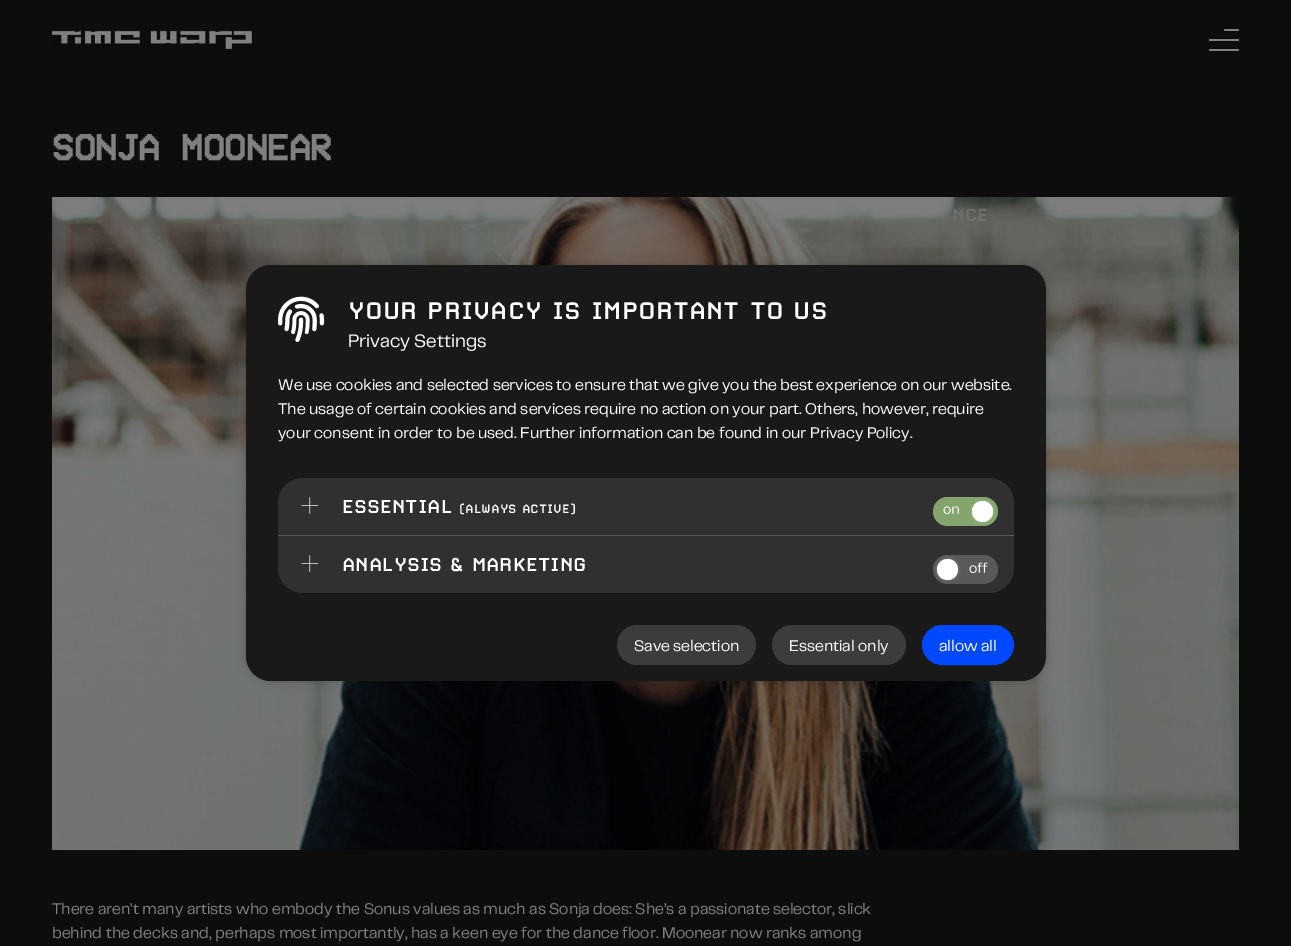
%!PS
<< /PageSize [1291 946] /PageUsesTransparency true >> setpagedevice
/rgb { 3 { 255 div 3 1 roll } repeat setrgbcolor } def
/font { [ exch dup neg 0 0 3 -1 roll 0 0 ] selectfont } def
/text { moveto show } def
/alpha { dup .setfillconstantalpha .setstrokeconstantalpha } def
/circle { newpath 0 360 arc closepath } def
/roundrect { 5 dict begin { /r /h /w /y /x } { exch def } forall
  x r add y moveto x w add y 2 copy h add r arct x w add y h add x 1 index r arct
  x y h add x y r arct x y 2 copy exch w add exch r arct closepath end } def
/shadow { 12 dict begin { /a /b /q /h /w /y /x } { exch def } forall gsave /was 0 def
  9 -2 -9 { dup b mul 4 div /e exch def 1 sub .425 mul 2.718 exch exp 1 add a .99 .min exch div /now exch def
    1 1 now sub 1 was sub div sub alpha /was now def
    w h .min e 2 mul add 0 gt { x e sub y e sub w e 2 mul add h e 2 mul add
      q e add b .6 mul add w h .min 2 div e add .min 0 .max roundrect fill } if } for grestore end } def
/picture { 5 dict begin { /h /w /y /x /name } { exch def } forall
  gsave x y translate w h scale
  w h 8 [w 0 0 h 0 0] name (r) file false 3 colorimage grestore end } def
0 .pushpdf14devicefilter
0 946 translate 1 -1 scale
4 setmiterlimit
13 13 13 rgb
0 0 1291 946 rectfill
(img_01.rgb) 52 30 200 19 picture
128 128 128 rgb
1209 39 30 2 1 roundrect fill
1224 29 15 2 1 roundrect fill
1209 49 30 2 1 roundrect fill
(img_02.rgb) 52 197 1187 653 picture
0 0 0 rgb
246 265 800 416 25 5 0.25 shadow
25 25 25 rgb
246 265 800 416 25 roundrect fill
(img_03.rgb) 278 296 47 46 picture
48 48 48 rgb
278 478 736 115 25 roundrect fill
(img_04.rgb) 301 497 18 17 picture
133 163 109 rgb
933 497 65 29 14.5 roundrect fill
(img_05.rgb) 943 506 16 8 picture
255 255 255 rgb
972 501 21 21 10.5 1.5 0.25 shadow
982.5 511.5 10.5 circle fill
89 89 89 rgb
278 535 736 1 rectfill
(img_04.rgb) 301 555 18 17 picture
933 555 65 29 14.5 roundrect fill
255 255 255 rgb
937 559 21 21 10.5 1.5 0.25 shadow
947.5 569.5 10.5 circle fill
(img_06.rgb) 969 562 19 11 picture
60 60 60 rgb
617 625 139 40 20 roundrect fill
772 625 134 40 20 roundrect fill
0 72 255 rgb
922.5 625.5 91 39 19.5 roundrect gsave fill grestore
stroke
/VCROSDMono-Bold 36.75 font
128 128 128 rgb
(SONJA MOONEAR) 52 162 text
/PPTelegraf-Regular 16 font
(There aren't many artists who embody the Sonus values as much as Sonja does: She’s a passionate selector, slick) 52 914 text
(behind the decks and, perhaps most importantly, has a keen eye for the dance floor. Moonear now ranks among) 52 938 text
/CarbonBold-Bold 21 font
110 112 109 rgb
(NCE) 952 221 text
/CarbonBold-Bold 28.75 font
255 255 255 rgb
(YOUR PRIVACY IS IMPORTANT TO US) 348 319 text
/PPTelegraf-Regular 18.75 font
(Privacy Settings) 348 347 text
/PPTelegraf-Regular 16 font
(We use cookies and selected services to ensure that we give you the best experience on our website.) 278 390 text
(The usage of certain cookies and services require no action on your part. Others, however, require) 278 414 text
(your consent in order to be used. Further information can be found in our Privacy Policy.) 278 438 text
/CarbonBold-Bold 22.4 font
(ESSENTIAL) 342 513 text
/CarbonBold-Bold 14.5 font
(\(ALWAYS ACTIVE\)) 459 513 text
/CarbonBold-Bold 22.4 font
(ANALYSIS & MARKETING) 342 571 text
/PPTelegraf-Regular 16 font
(Save selection) 634 651 text
(Essential only) 789 651 text
(allow all) 939 651 text
.poppdf14devicefilter showpage
